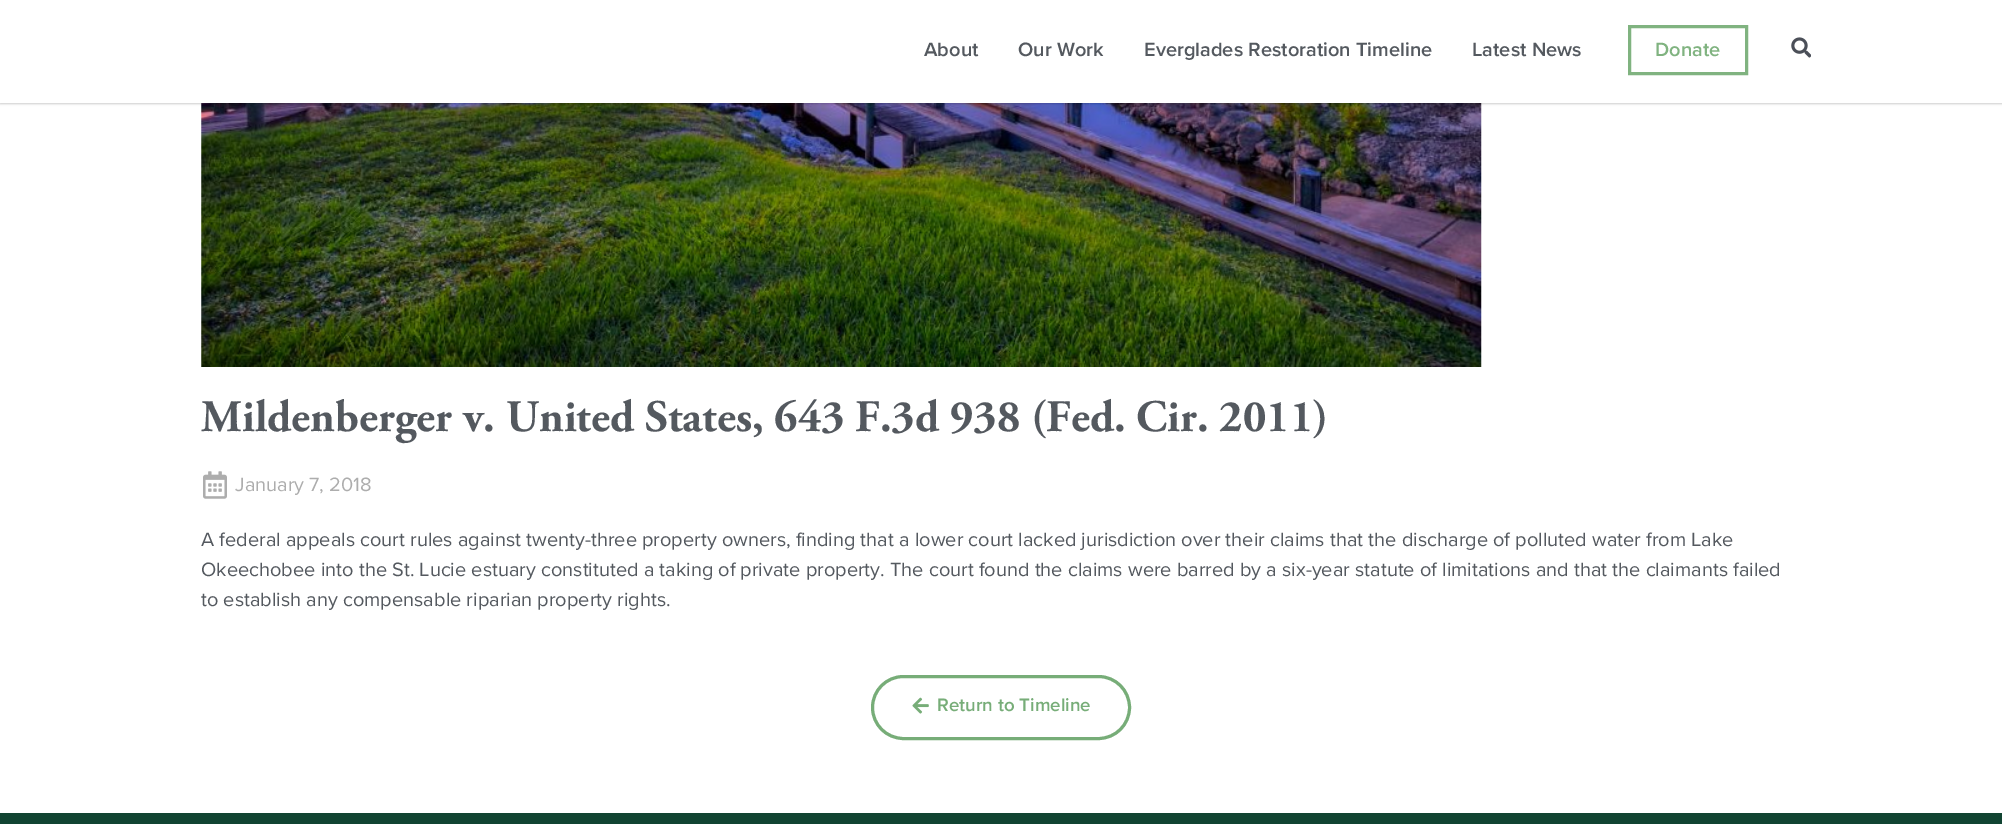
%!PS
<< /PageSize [2002 824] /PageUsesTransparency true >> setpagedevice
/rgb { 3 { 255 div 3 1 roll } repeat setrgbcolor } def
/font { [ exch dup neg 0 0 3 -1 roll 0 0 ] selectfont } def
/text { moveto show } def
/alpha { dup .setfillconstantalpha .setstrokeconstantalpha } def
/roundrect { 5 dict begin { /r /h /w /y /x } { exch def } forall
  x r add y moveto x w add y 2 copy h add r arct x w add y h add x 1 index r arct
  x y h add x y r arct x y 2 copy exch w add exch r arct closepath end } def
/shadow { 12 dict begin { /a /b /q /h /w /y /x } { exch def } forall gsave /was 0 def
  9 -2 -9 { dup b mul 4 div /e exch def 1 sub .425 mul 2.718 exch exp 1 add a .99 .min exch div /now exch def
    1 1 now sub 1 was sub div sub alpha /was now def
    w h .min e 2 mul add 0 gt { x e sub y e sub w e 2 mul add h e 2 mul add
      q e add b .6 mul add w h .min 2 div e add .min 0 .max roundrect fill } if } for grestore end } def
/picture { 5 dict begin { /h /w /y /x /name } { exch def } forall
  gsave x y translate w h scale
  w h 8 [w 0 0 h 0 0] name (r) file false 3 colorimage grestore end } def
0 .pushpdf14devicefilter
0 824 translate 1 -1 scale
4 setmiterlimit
255 255 255 rgb
0 0 2002 824 rectfill
(img_02.rgb) 201 103 1281 264 picture
0 0 0 rgb
0 1 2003 103 0 1 0.2 shadow
255 255 255 rgb
0 0 2002 103 rectfill
128 179 128 rgb
3 setlinewidth
1629.5 26.5 117 47 rectstroke
(img_01.rgb) 1791 37 20 21 picture
(img_03.rgb) 203 471 24 28 picture
119 173 120 rgb
872.5 676.5 257 62 31 roundrect stroke
(img_04.rgb) 912 697 17 17 picture
17 68 50 rgb
0 813 2002 11 rectfill
/ProximaNova-SemiBold 20 font
84 89 95 rgb
(About) 924 56 text
(Our Work) 1018 56 text
(Everglades Restoration Timeline) 1144 56 text
(Latest News) 1472 56 text
128 179 128 rgb
(Donate) 1655 56 text
/AdobeGaramond-Bold 45 font
84 89 95 rgb
(Mildenberger v. United States, 643 F.3d 938 \(Fed. Cir. 2011\)) 201 431 text
/ProximaNova-Regular 20 font
173 173 173 rgb
(January 7, 2018) 235 491 text
84 89 95 rgb
(A federal appeals court rules against twenty-three property owners, finding that a lower court lacked jurisdiction over their claims that the discharge of polluted water from Lake) 201 546 text
(Okeechobee into the St. Lucie estuary constituted a taking of private property. The court found the claims were barred by a six-year statute of limitations and that the claimants failed) 201 576 text
(to establish any compensable riparian property rights.) 201 606 text
/ProximaNova-SemiBold 18.75 font
119 173 120 rgb
(Return to Timeline) 937 711 text
.poppdf14devicefilter showpage
